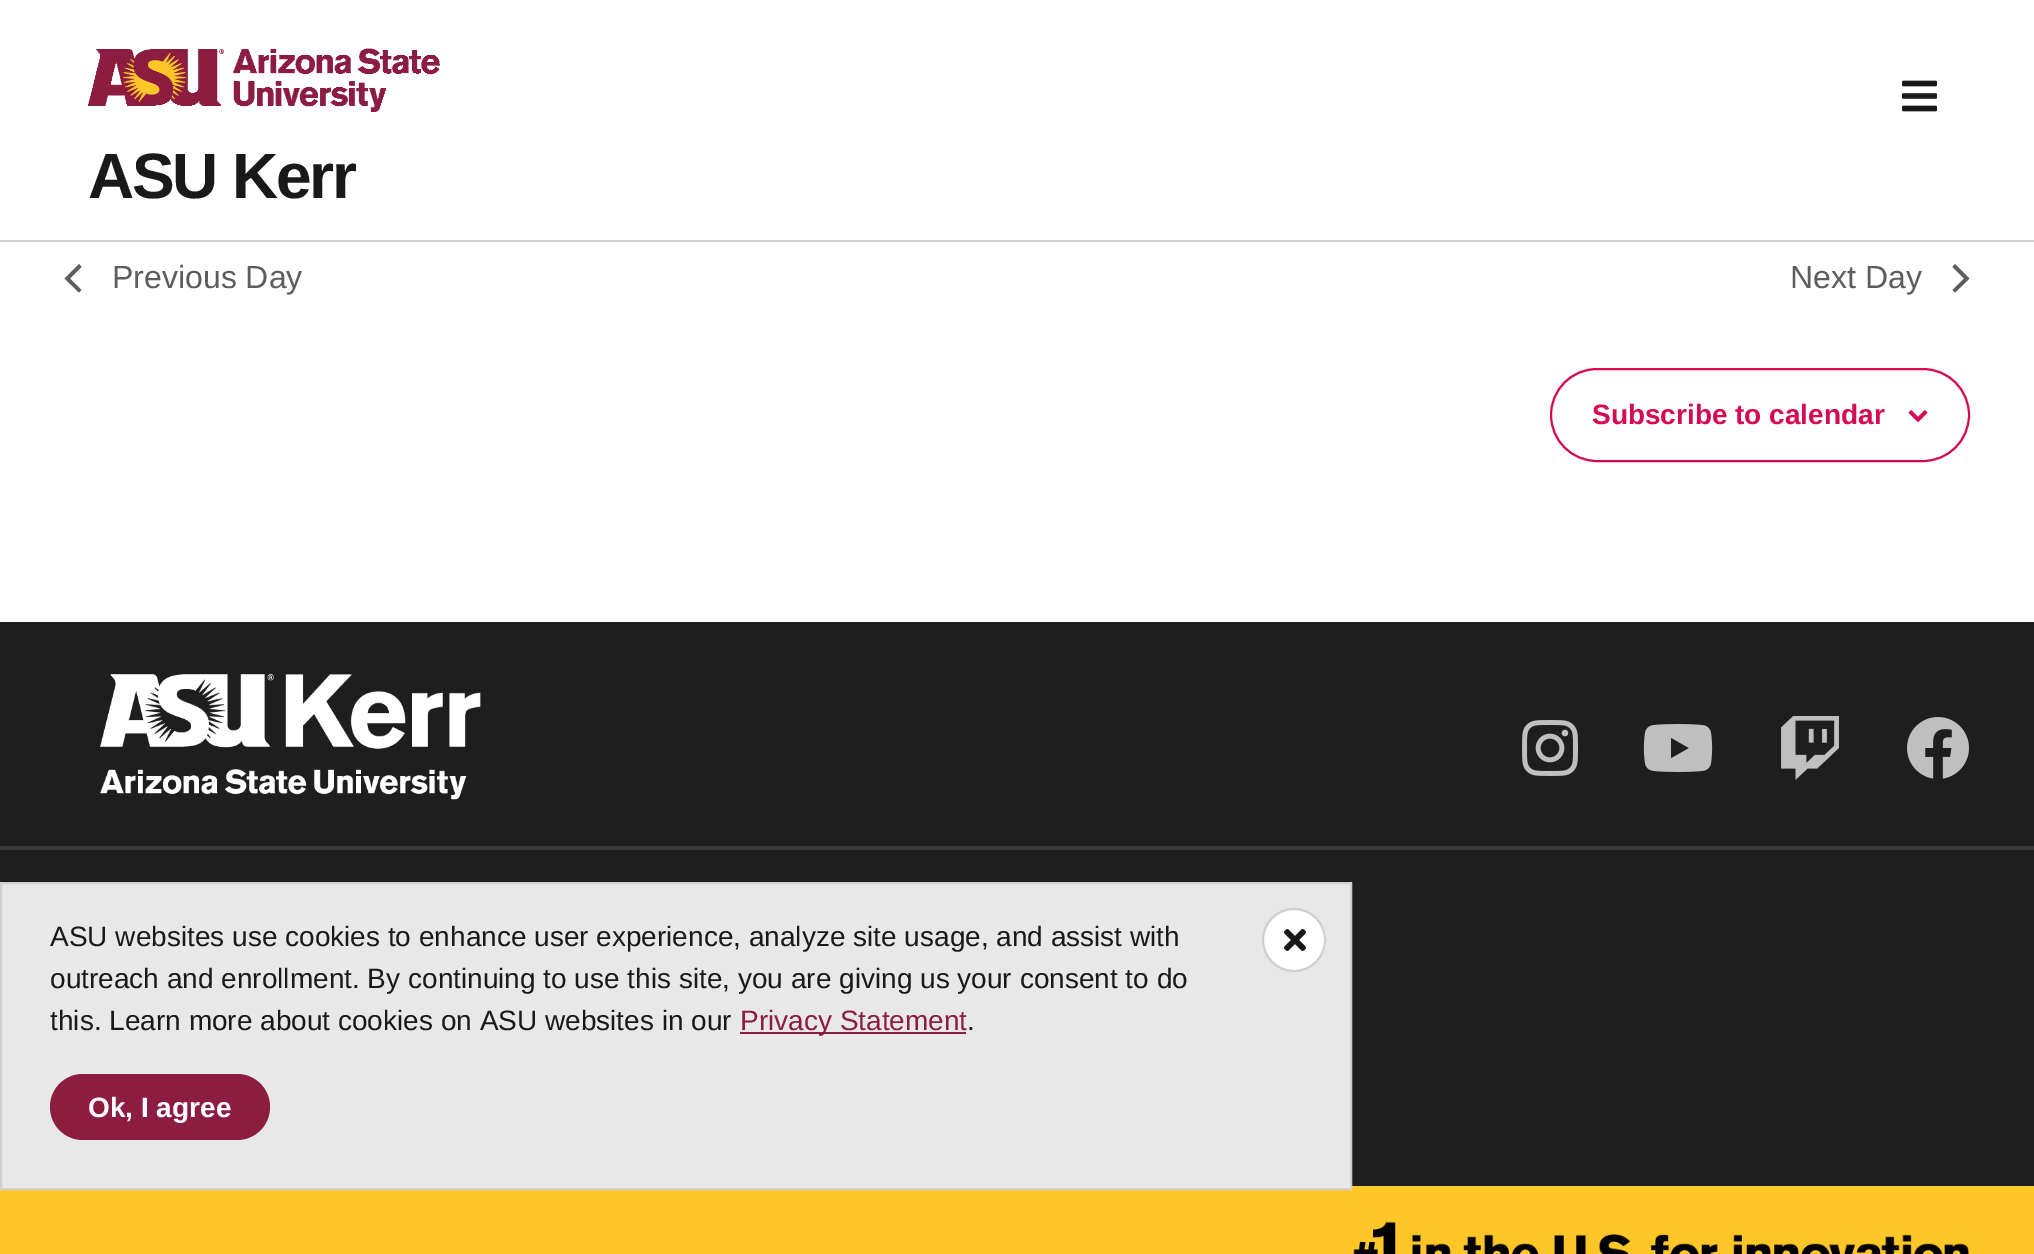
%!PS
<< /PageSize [2034 1254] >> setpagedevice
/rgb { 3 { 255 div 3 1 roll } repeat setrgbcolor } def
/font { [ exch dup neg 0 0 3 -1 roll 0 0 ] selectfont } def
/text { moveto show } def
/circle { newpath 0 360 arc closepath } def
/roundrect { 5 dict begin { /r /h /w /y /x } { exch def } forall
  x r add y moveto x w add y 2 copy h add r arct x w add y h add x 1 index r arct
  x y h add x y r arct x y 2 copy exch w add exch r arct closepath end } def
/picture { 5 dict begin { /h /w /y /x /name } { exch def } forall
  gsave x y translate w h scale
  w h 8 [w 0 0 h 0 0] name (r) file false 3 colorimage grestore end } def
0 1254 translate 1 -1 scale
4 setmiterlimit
255 255 255 rgb
0 0 2034 1254 rectfill
208 208 208 rgb
0 240 2034 2 rectfill
(img_01.rgb) 88 48 352 64 picture
(img_02.rgb) 1902 80 35 32 picture
93 93 93 rgb
81.5 290 moveto -2.5 2.5 rlineto -14.5 -14 rlineto 14.5 -14.5 rlineto 2.5 3 rlineto -11.5 11.5 rlineto closepath fill
1952.5 267 moveto 2.5 -3 rlineto 14.5 14.5 rlineto -14.5 14 rlineto -2.5 -2.5 rlineto 11.5 -11.5 rlineto closepath fill
214 9 83 rgb
2 setlinewidth
1551 369 418 92 46 roundrect stroke
(img_03.rgb) 1908 410 20 12 picture
30 30 30 rgb
0 622 2034 224 rectfill
(img_04.rgb) 100 673 381 127 picture
(img_05.rgb) 1522 720 56 56 picture
(img_06.rgb) 1643 724 70 48 picture
(img_07.rgb) 1781 716 58 64 picture
(img_08.rgb) 1907 717 62 62 picture
0 850 2034 336 rectfill
57 57 57 rgb
0 846 2034 4 rectfill
255 198 39 rgb
0 1186 2034 68 rectfill
(img_09.rgb) 1353 1221 616 33 picture
232 232 232 rgb
1 883 moveto 1350 0 rlineto 0 306 rlineto -1350 0 rlineto closepath gsave fill grestore
208 208 208 rgb
stroke
255 255 255 rgb
1294 940 31 circle gsave fill grestore
208 208 208 rgb
stroke
(img_10.rgb) 1284 929 22 22 picture
140 29 64 rgb
740 1032 226 2 rectfill
50 1074 220 66 33 roundrect fill
/LiberationSans-Bold 64 font
25 25 25 rgb
88 198 moveto -2.25 0 (ASU Kerr) ashow
/LiberationSans-Regular 32 font
93 93 93 rgb
(Previous Day) 112 288 text
(Next Day) 1790 288 text
/LiberationSans-Bold 28 font
214 9 83 rgb
(Subscribe to calendar) 1592 424 text
/LiberationSans-Regular 28 font
25 25 25 rgb
(ASU websites use cookies to enhance user experience, analyze site usage, and assist with) 50 946 text
(outreach and enrollment. By continuing to use this site, you are giving us your consent to do) 50 988 text
(this. Learn more about cookies on ASU websites in our) 50 1030 text
140 29 64 rgb
(Privacy Statement) 740 1030 text
25 25 25 rgb
(.) 967 1030 text
/LiberationSans-Bold 28 font
255 255 255 rgb
(Ok, I agree) 88 1117 text
showpage
